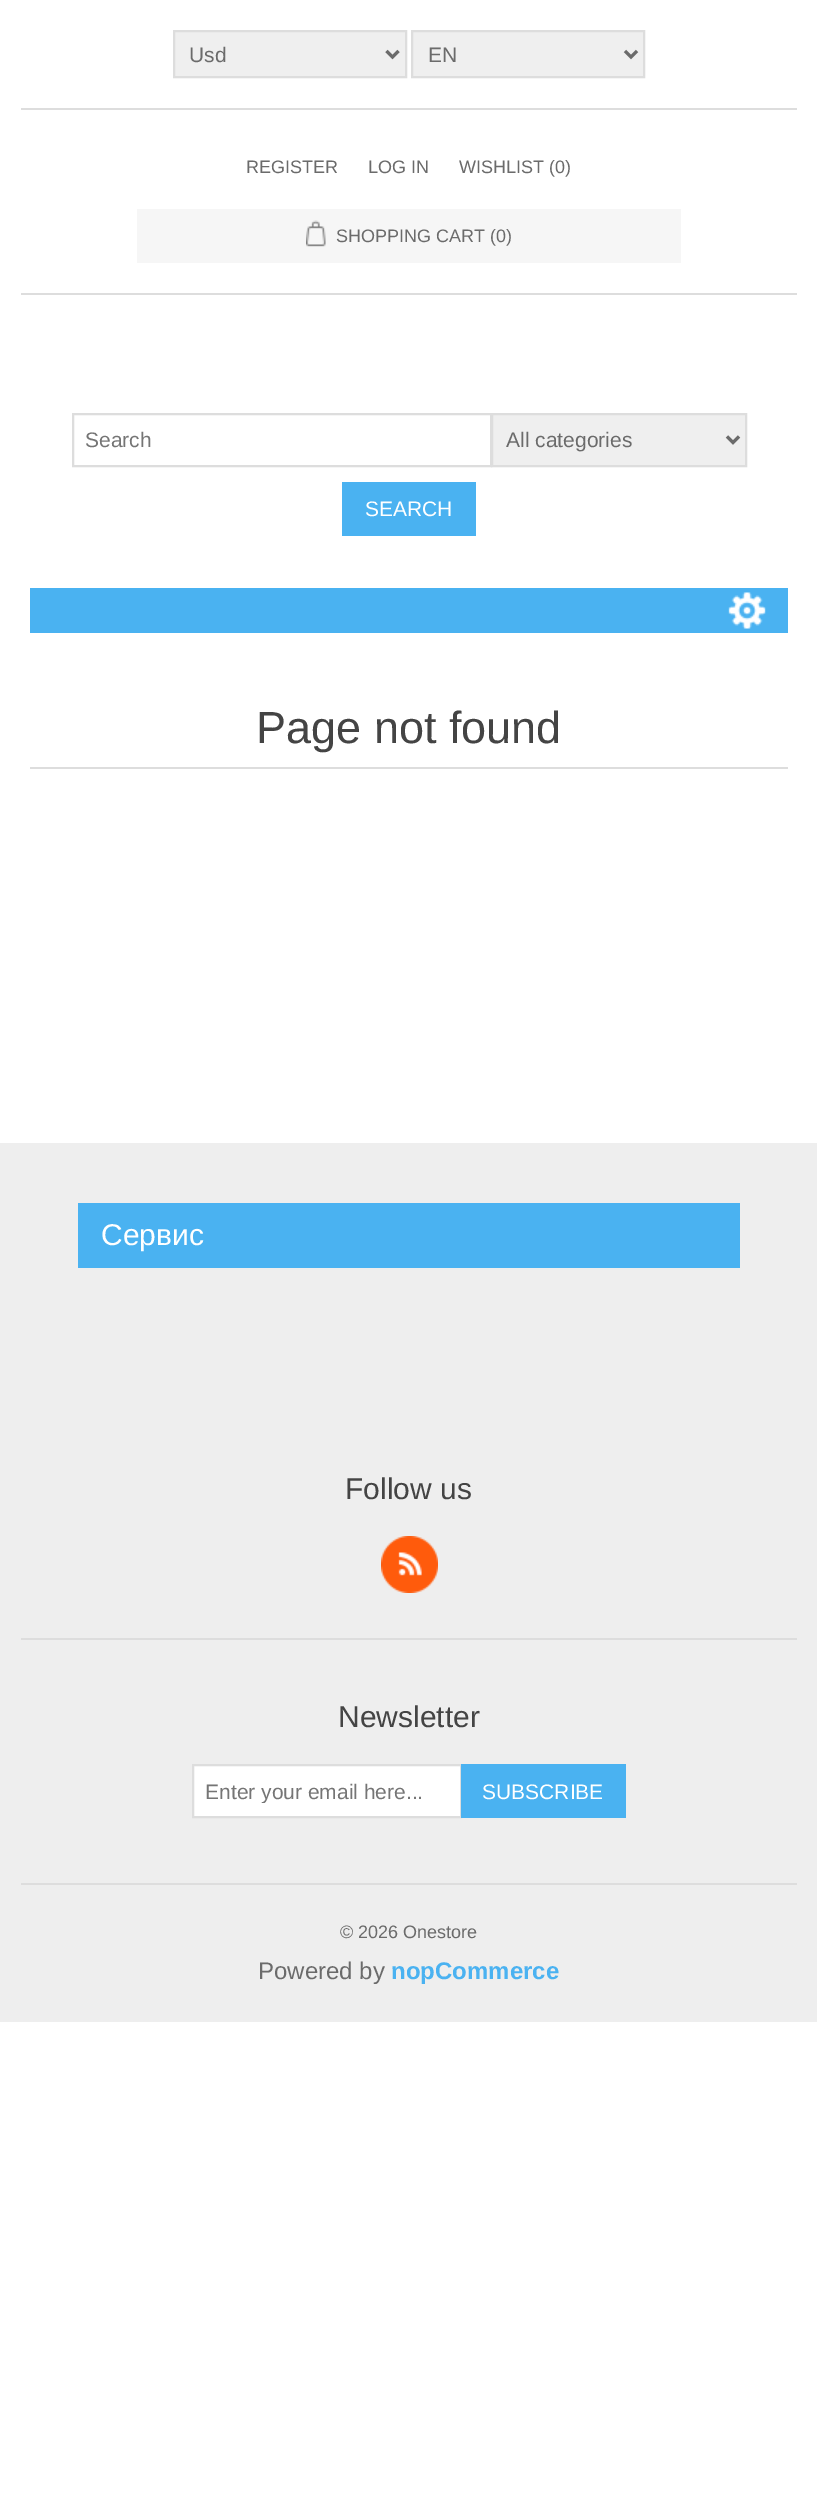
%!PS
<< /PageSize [817 2515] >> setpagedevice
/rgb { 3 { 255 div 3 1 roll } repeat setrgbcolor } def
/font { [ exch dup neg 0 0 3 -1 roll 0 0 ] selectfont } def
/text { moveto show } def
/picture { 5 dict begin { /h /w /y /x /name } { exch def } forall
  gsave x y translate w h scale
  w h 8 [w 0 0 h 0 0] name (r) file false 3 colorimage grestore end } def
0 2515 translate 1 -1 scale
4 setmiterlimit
255 255 255 rgb
0 0 817 2515 rectfill
221 221 221 rgb
21 293 776 2 rectfill
21 108 776 2 rectfill
239 239 239 rgb
174 31 moveto 232 0 rlineto 0 46 rlineto -232 0 rlineto closepath gsave fill grestore
221 221 221 rgb
2 setlinewidth
stroke
107 107 107 rgb
3 setlinewidth
386.5 51 moveto 6 6 rlineto 6 -6 rlineto stroke
239 239 239 rgb
412 31 moveto 232 0 rlineto 0 46 rlineto -232 0 rlineto closepath gsave fill grestore
221 221 221 rgb
2 setlinewidth
stroke
107 107 107 rgb
3 setlinewidth
625 51 moveto 6 6 rlineto 6 -6 rlineto stroke
246 246 246 rgb
137 209 544 54 rectfill
(img_01.rgb) 306 220 20 27 picture
221 221 221 rgb
2 setlinewidth
73 414 418 52 rectstroke
239 239 239 rgb
492 414 moveto 254 0 rlineto 0 52 rlineto -254 0 rlineto closepath gsave fill grestore
221 221 221 rgb
stroke
107 107 107 rgb
3 setlinewidth
727 436.5 moveto 6 6 rlineto 6 -6 rlineto stroke
74 178 241 rgb
342 482 134 54 rectfill
30 588 758 45 rectfill
(img_02.rgb) 728 592 38 37 picture
221 221 221 rgb
30 767 758 2 rectfill
238 238 238 rgb
0 1143 817 879 rectfill
221 221 221 rgb
21 1883 776 2 rectfill
74 178 241 rgb
78 1203 662 65 rectfill
221 221 221 rgb
21 1638 776 2 rectfill
(img_03.rgb) 381 1536 57 57 picture
255 255 255 rgb
193 1765 moveto 268 0 rlineto 0 52 rlineto -268 0 rlineto closepath gsave fill grestore
221 221 221 rgb
2 setlinewidth
stroke
74 178 241 rgb
461 1764 165 54 rectfill
/LiberationSans-Regular 21 font
107 107 107 rgb
(Usd) 189 62 text
(EN) 428 62 text
/LiberationSans-Regular 18 font
(REGISTER) 246 173 text
(LOG IN) 368 173 text
(WISHLIST \(0\)) 459 173 text
(SHOPPING CART \(0\)) 336 242 text
/LiberationSans-Regular 21 font
117 117 117 rgb
(Search) 85 447 text
107 107 107 rgb
(All categories) 506 447 text
255 255 255 rgb
(SEARCH) 365 516 text
/LiberationSans-Regular 45 font
68 68 68 rgb
(Page not found) 256 743 text
/LiberationSans-Regular 30 font
255 255 255 rgb
(Сервис) 101 1245 text
68 68 68 rgb
(Follow us) 345 1499 text
(Newsletter) 338 1727 text
gsave
206 1779 243 24 rectclip
/LiberationSans-Regular 21 font
117 117 117 rgb
(Enter your email here...) 205 1799 text
grestore
/LiberationSans-Regular 21 font
255 255 255 rgb
(SUBSCRIBE) 482 1799 text
/LiberationSans-Regular 18 font
107 107 107 rgb
(© 2026 Onestore) 340 1938 text
/LiberationSans-Regular 24 font
(Powered by) 258 1979 text
/LiberationSans-Bold 24 font
74 178 241 rgb
(nopCommerce) 391 1979 text
showpage
